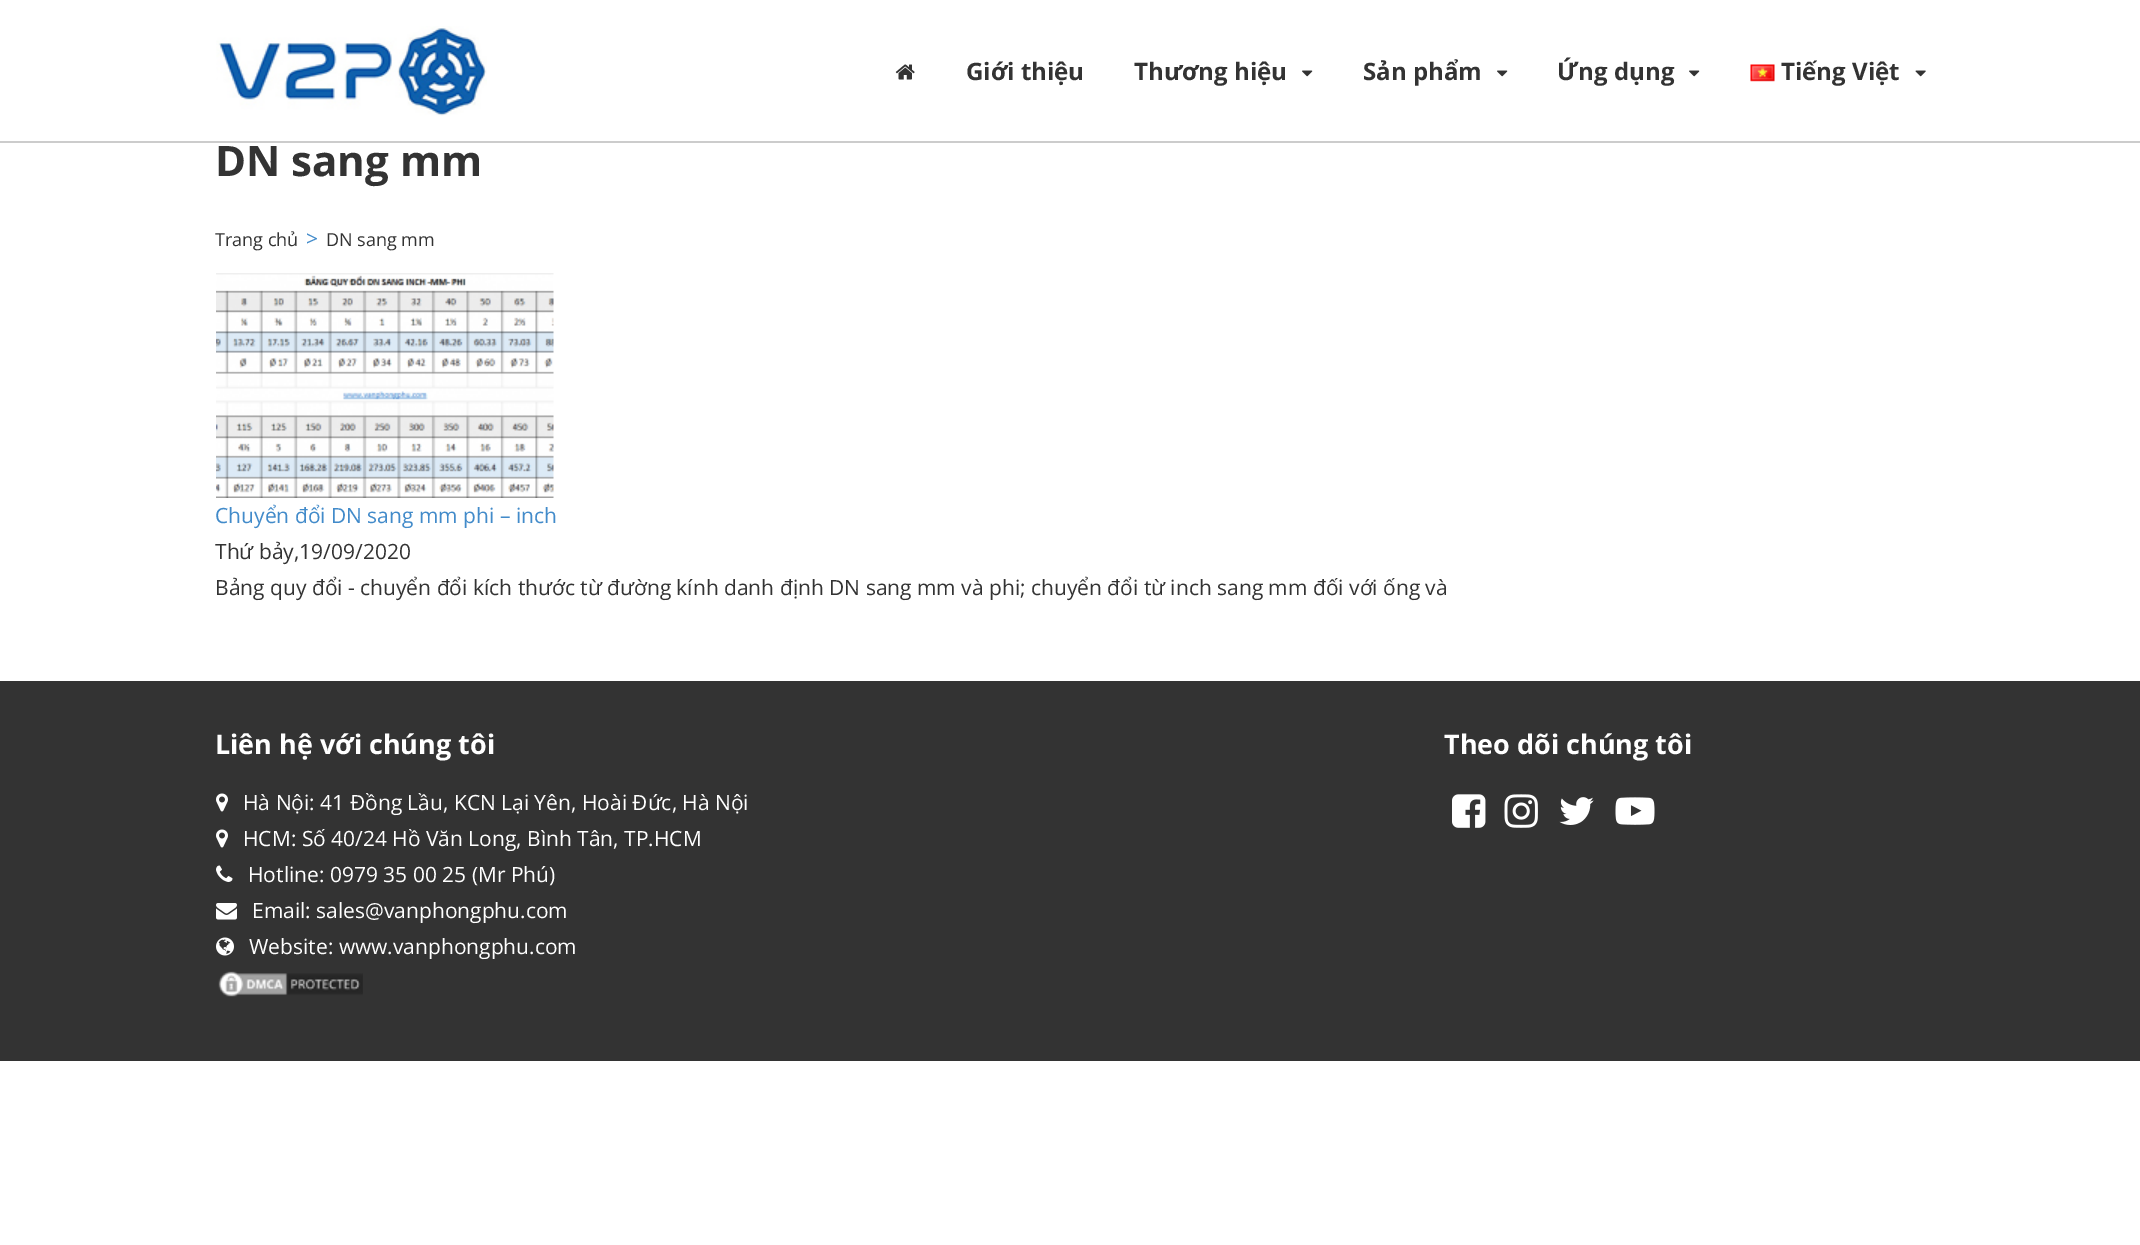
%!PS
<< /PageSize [2140 1245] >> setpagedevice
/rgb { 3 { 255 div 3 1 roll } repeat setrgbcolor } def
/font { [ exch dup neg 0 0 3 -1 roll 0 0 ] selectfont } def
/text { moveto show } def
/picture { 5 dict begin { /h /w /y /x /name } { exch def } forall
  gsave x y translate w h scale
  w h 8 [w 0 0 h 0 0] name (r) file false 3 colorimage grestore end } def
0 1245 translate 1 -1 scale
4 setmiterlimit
255 255 255 rgb
0 0 2140 1245 rectfill
204 204 204 rgb
0 141 moveto 0 2 rlineto 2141 0 rlineto 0 -141 rlineto -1 0 rlineto 0 139 rlineto closepath fill
(img_01.rgb) 216 26 271 90 picture
(img_02.rgb) 895 64 20 16 picture
(img_03.rgb) 1302 70 11 7 picture
(img_03.rgb) 1497 70 11 7 picture
(img_03.rgb) 1689 70 11 7 picture
(img_04.rgb) 1750 64 25 18 picture
(img_05.rgb) 1915 70 11 7 picture
(img_06.rgb) 216 273 338 225 picture
51 51 51 rgb
0 681 2140 380 rectfill
(img_07.rgb) 216 793 12 19 picture
(img_07.rgb) 216 829 12 19 picture
(img_08.rgb) 216 865 17 17 picture
(img_09.rgb) 216 903 21 17 picture
(img_10.rgb) 216 937 18 19 picture
(img_11.rgb) 1452 794 34 34 picture
(img_12.rgb) 1504 794 34 34 picture
(img_13.rgb) 1559 797 35 28 picture
(img_14.rgb) 1615 797 40 28 picture
(img_15.rgb) 218 971 145 26 picture
/OpenSans-Bold 24 font
(Giới thiệu) 966 80 text
(Thương hiệu) 1134 80 text
(Sản phẩm) 1363 80 text
(Ứng dụng) 1557 80 text
(Tiếng Việt) 1781 80 text
/OpenSans-Bold 42 font
(DN sang mm) 215 176 text
/OpenSans-Regular 18 font
(Trang chủ) 215 246 text
/OpenSans-Regular 21 font
66 139 202 rgb
(>) 306 246 text
/OpenSans-Regular 18 font
51 51 51 rgb
(DN sang mm) 326 246 text
/OpenSans-Regular 21 font
66 139 202 rgb
(Chuyển đổi DN sang mm phi – inch) 215 523 text
51 51 51 rgb
(Thứ bảy,19/09/2020) 215 559 text
(Bảng quy đổi - chuyển đổi kích thước từ đường kính danh định DN sang mm và phi; chuyển đổi từ inch sang mm đối với ống và) 215 595 text
/OpenSans-Bold 27 font
255 255 255 rgb
(Liên hệ với chúng tôi) 215 754 text
/OpenSans-Regular 21 font
(Hà Nội: 41 Đồng Lầu, KCN Lại Yên, Hoài Đức, Hà Nội) 243 810 text
(HCM: Số 40/24 Hồ Văn Long, Bình Tân, TP.HCM) 243 846 text
(Hotline: 0979 35 00 25 \(Mr Phú\)) 248 882 text
(Email: sales@vanphongphu.com) 252 918 text
(Website: www.vanphongphu.com) 249 954 text
/OpenSans-Bold 27 font
(Theo dõi chúng tôi) 1444 754 text
showpage
